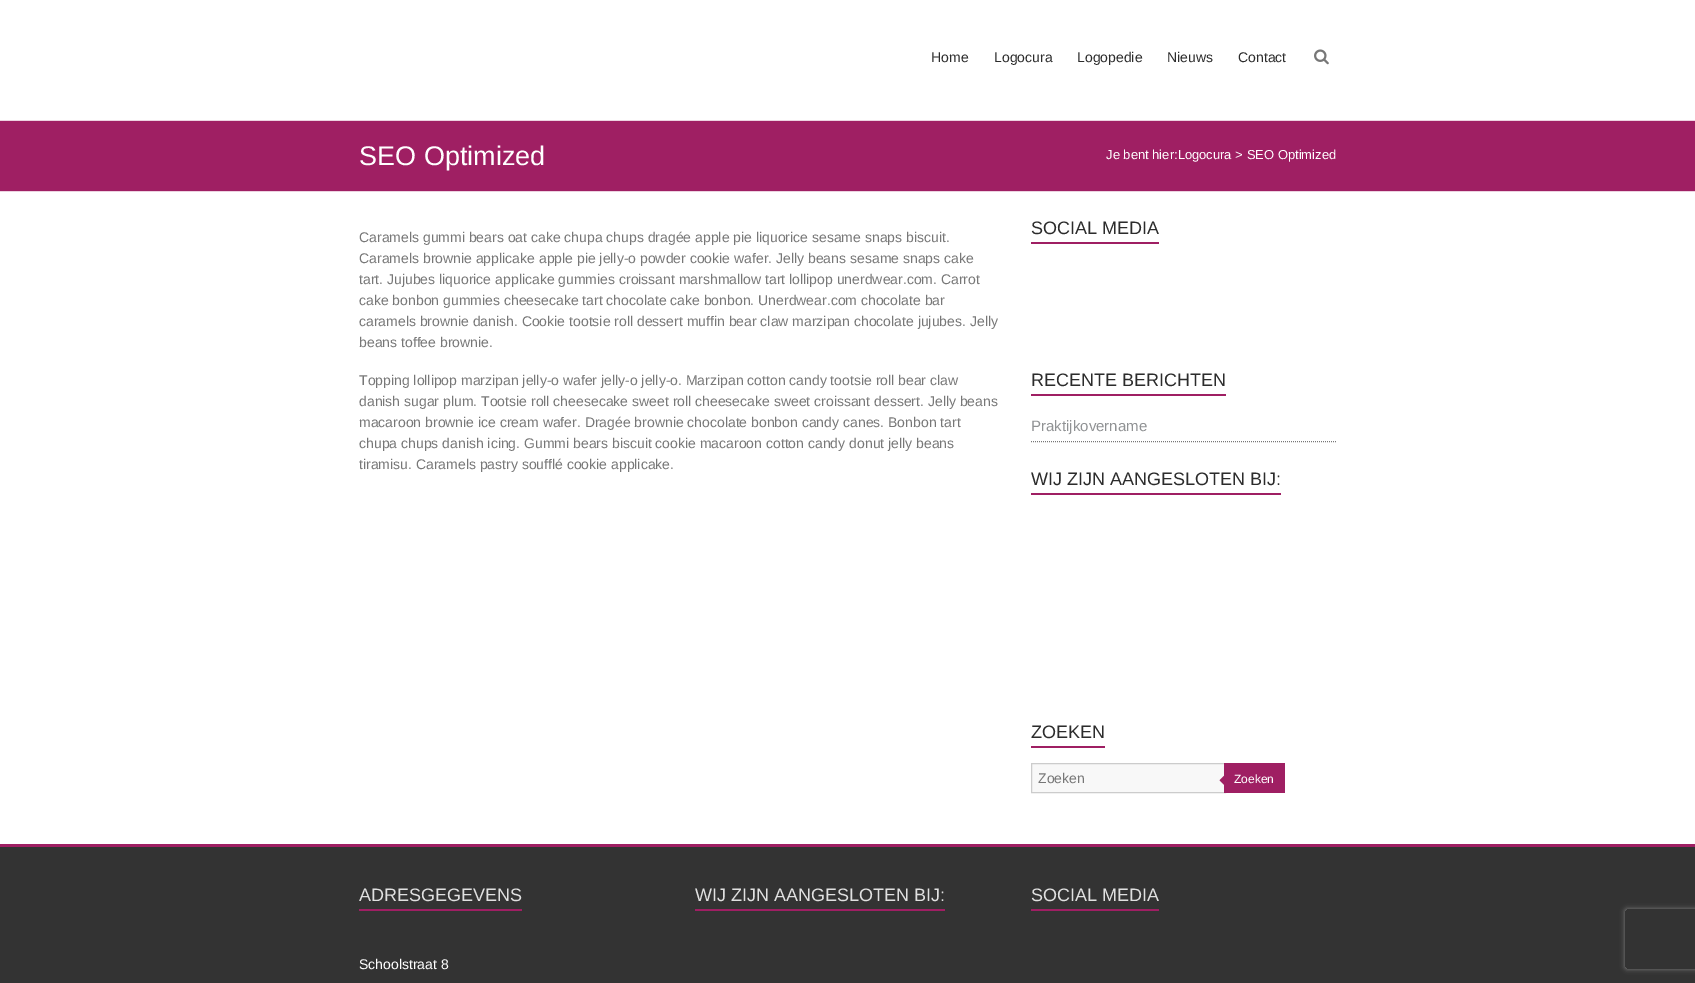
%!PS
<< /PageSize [1695 983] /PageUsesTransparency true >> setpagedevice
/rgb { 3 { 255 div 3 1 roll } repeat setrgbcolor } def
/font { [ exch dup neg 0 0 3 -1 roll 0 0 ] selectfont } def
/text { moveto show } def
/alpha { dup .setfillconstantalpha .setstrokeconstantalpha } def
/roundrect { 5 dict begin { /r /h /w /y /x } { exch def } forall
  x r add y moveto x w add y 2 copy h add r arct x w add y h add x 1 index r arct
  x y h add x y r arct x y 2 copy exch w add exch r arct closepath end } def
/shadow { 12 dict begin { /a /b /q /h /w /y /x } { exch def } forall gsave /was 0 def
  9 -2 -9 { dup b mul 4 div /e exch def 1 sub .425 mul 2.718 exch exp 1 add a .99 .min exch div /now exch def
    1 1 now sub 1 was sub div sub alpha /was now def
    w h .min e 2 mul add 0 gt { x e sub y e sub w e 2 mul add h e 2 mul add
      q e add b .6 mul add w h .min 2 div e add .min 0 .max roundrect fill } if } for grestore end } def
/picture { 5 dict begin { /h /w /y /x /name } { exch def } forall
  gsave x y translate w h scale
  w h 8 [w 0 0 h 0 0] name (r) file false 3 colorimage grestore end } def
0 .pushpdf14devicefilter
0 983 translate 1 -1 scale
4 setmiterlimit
255 255 255 rgb
0 0 1695 983 rectfill
(img_01.rgb) 1314 49 15 16 picture
159 31 99 rgb
0 121 1695 70 rectfill
236 210 224 rgb
0 120 1695 1 rectfill
0 191 1695 1 rectfill
159 31 99 rgb
1031 242 128 2 rectfill
1031 394 195 2 rectfill
119 119 119 rgb
[1 1] 0 setdash
1031 441.5 moveto 306 0 rlineto stroke
159 31 99 rgb
1031 493 250 2 rectfill
1031 746 74 2 rectfill
248 248 248 rgb
1032 764 192 28 rectfill
204 204 204 rgb
[] 0 setdash
1031.5 763.5 194 29 rectstroke
159 31 99 rgb
1224 763 61 30 rectfill
(img_02.rgb) 1219 775 5 10 picture
51 51 51 rgb
0 847 1695 136 rectfill
159 31 99 rgb
0 844 1695 3 rectfill
359 909 163 2 rectfill
695 909 250 2 rectfill
1031 909 128 2 rectfill
gsave
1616 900 moveto 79 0 rlineto 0 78 rlineto -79 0 rlineto closepath 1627 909 moveto 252 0 rlineto 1 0 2 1 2 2 rcurveto 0 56 rlineto 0 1 -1 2 -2 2 rcurveto -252 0 rlineto -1 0 -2 -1 -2 -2 rcurveto 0 -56 rlineto 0 -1 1 -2 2 -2 rcurveto closepath eoclip newpath
128 128 128 rgb
1625 909 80 60 2 2.5 1 shadow
grestore
/LiberationSans-Regular 14 font
44 44 44 rgb
(Home) 931 62 text
(Logocura) 994 62 text
(Logopedie) 1077 62 text
(Nieuws) 1167 62 text
(Contact) 1238 62 text
/LiberationSans-Regular 27 font
255 255 255 rgb
(SEO Optimized) 359 165 text
/LiberationSans-Regular 13 font
(Je bent hier:Logocura > SEO Optimized) 1106 159 text
/LiberationSans-Regular 14 font
119 119 119 rgb
(Caramels gummi bears oat cake chupa chups dragée apple pie liquorice sesame snaps biscuit.) 359 242 text
(Caramels brownie applicake apple pie jelly-o powder cookie wafer. Jelly beans sesame snaps cake) 359 263 text
(tart. Jujubes liquorice applicake gummies croissant marshmallow tart lollipop unerdwear.com. Carrot) 359 284 text
(cake bonbon gummies cheesecake tart chocolate cake bonbon. Unerdwear.com chocolate bar) 359 305 text
(caramels brownie danish. Cookie tootsie roll dessert muffin bear claw marzipan chocolate jujubes. Jelly) 359 326 text
(beans toffee brownie.) 359 347 text
(Topping lollipop marzipan jelly-o wafer jelly-o jelly-o. Marzipan cotton candy tootsie roll bear claw) 359 385 text
(danish sugar plum. Tootsie roll cheesecake sweet roll cheesecake sweet croissant dessert. Jelly beans) 359 406 text
(macaroon brownie ice cream wafer. Dragée brownie chocolate bonbon candy canes. Bonbon tart) 359 427 text
(chupa chups danish icing. Gummi bears biscuit cookie macaroon cotton candy donut jelly beans) 359 448 text
(tiramisu. Caramels pastry soufflé cookie applicake.) 359 469 text
/LiberationSans-Regular 18 font
44 44 44 rgb
(SOCIAL MEDIA) 1031 234 text
(RECENTE BERICHTEN) 1031 386 text
/LiberationSans-Regular 15 font
144 146 148 rgb
(Praktijkovername) 1031 431 text
/LiberationSans-Regular 18 font
44 44 44 rgb
(WIJ ZIJN AANGESLOTEN BIJ:) 1031 485 text
(ZOEKEN) 1031 738 text
/LiberationSans-Regular 14 font
119 119 119 rgb
(Zoeken) 1038 783 text
/LiberationSans-Regular 12 font
255 255 255 rgb
(Zoeken) 1234 783 text
/LiberationSans-Regular 18 font
224 224 224 rgb
(ADRESGEGEVENS) 359 901 text
/LiberationSans-Regular 14 font
255 255 255 rgb
(Schoolstraat 8) 359 969 text
/LiberationSans-Regular 18 font
224 224 224 rgb
(WIJ ZIJN AANGESLOTEN BIJ:) 695 901 text
(SOCIAL MEDIA) 1031 901 text
.poppdf14devicefilter showpage
